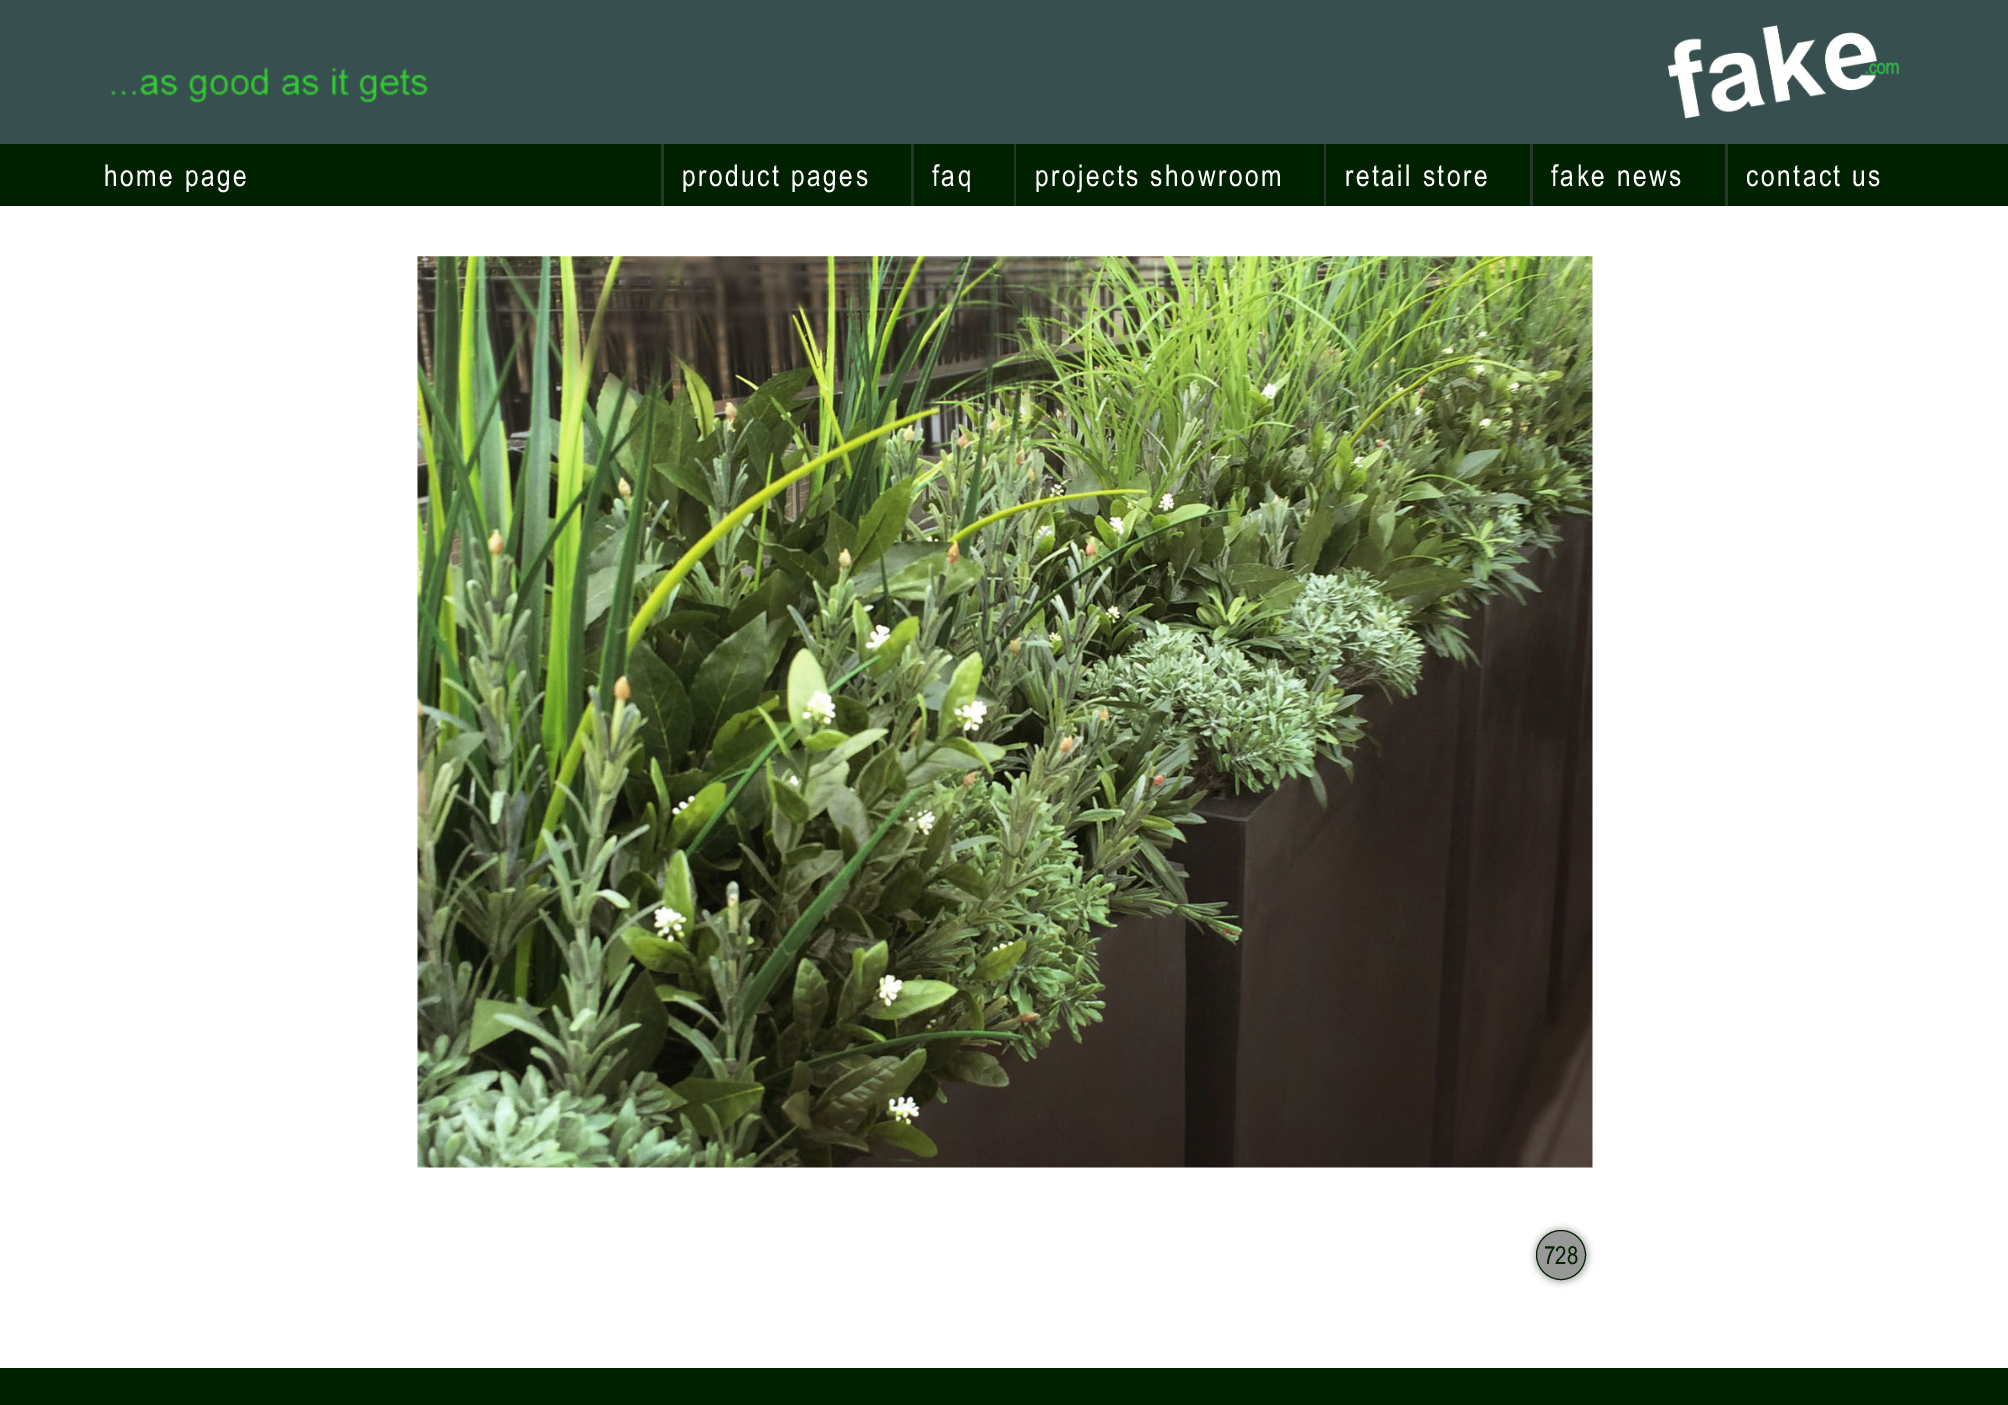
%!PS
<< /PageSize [2008 1405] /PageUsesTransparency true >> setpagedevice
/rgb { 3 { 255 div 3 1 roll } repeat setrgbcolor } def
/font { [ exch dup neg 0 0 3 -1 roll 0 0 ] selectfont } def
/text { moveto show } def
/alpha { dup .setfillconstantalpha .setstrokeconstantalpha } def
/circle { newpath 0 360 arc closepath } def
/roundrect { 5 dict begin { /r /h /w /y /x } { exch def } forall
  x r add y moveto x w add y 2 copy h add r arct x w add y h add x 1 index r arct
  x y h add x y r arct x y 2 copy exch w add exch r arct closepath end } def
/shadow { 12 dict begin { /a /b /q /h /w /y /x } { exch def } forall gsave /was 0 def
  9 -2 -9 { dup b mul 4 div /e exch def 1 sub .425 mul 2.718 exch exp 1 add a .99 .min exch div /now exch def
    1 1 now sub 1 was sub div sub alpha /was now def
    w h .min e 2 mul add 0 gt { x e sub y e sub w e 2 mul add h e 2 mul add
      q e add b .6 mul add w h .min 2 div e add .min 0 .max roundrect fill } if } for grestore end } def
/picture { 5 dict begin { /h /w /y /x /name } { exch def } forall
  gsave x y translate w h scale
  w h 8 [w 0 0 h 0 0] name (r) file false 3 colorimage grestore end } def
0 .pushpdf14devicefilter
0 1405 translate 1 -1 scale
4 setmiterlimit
56 79 79 rgb
0 0 2008 1405 rectfill
(img_01.rgb) 111 67 317 36 picture
(img_02.rgb) 1667 25 232 94 picture
0 33 0 rgb
0 144 2008 62 rectfill
39 53 42 rgb
661 144 3 62 rectfill
911 144 3 62 rectfill
1014 144 2 62 rectfill
1324 144 2 62 rectfill
1530 144 3 62 rectfill
1725 144 3 62 rectfill
255 255 255 rgb
0 206 2008 1162 rectfill
(img_03.rgb) 417 256 1176 912 picture
0 0 0 rgb
1534 1228 55 55 27.5 3 0.25 shadow
153 153 153 rgb
1561 1255 24.5 circle gsave fill grestore
0 33 0 rgb
stroke
0 1368 2008 37 rectfill
/Arial-Regular 30 font
255 255 255 rgb
104 186 moveto 2.5 0 (home page) ashow
682 186 moveto 2.5 0 (product pages) ashow
932 186 moveto 2.5 0 (faq) ashow
1035 186 moveto 2.5 0 (projects showroom) ashow
1345 186 moveto 2.5 0 (retail store) ashow
1551 186 moveto 2.5 0 (fake news) ashow
1746 186 moveto 2.5 0 (contact us) ashow
/Arial-Regular 25 font
0 33 0 rgb
(728) 1544 1264 text
.poppdf14devicefilter showpage
